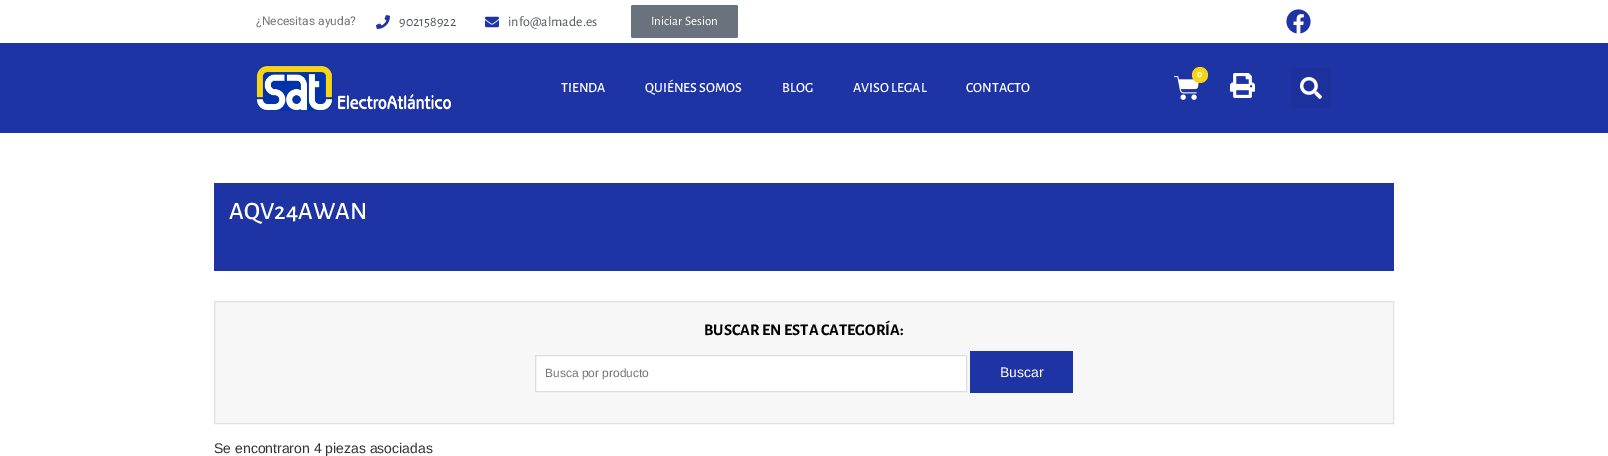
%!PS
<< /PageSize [1608 456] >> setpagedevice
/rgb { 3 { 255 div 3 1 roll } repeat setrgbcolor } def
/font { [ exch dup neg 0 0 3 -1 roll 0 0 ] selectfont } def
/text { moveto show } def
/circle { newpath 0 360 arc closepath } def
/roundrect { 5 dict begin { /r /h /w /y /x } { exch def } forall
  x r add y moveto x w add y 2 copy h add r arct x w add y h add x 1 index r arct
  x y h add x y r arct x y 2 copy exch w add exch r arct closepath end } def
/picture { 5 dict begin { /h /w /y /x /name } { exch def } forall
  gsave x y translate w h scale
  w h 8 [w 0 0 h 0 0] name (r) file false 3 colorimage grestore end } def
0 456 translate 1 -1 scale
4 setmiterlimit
255 255 255 rgb
0 0 1608 456 rectfill
(img_01.rgb) 376 15 14 14 picture
(img_02.rgb) 485 16 14 12 picture
105 114 125 rgb
631 5 107 33 2 roundrect fill
(img_03.rgb) 1286 9 25 25 picture
30 52 165 rgb
0 43 1608 90 rectfill
(img_04.rgb) 256 65 195 46 picture
(img_05.rgb) 1174 76 25 24 picture
247 212 23 rgb
1200 75 8 circle fill
(img_06.rgb) 1230 73 25 25 picture
29 49 157 rgb
1291 68 40 40 3 roundrect fill
(img_07.rgb) 1300 77 22 22 picture
30 52 165 rgb
214 183 1180 88 rectfill
247 247 247 rgb
214.5 301.5 moveto 1179 0 rlineto 0 122 rlineto -1179 0 rlineto closepath gsave fill grestore
225 225 225 rgb
stroke
255 255 255 rgb
535.5 355.5 moveto 431 0 rlineto 0 36 rlineto -431 0 rlineto closepath gsave fill grestore
221 221 221 rgb
stroke
30 52 165 rgb
970 351 103 42 rectfill
/Roboto-Regular 12 font
117 117 117 rgb
(¿Necesitas ayuda?) 256 25 text
/AlegreyaSans-Regular 14 font
84 89 95 rgb
(902158922) 399 26 text
(info@almade.es) 508 26 text
/AlegreyaSans-Regular 13 font
255 255 255 rgb
(Iniciar Sesion) 651 25 text
/AlegreyaSans-Bold 10 font
(0) 1197 77 text
/AlegreyaSans-Medium 14 font
(TIENDA) 561 92 text
(QUIÉNES SOMOS) 645 92 text
(BLOG) 782 92 text
(AVISO LEGAL) 853 92 text
(CONTACTO) 966 92 text
/AlegreyaSans-Medium 25 font
(AQV24AWAN) 229 219 text
/AlegreyaSans-Bold 16.25 font
0 0 0 rgb
(BUSCAR EN ESTA CATEGORÍA:) 704 335 text
/LiberationSans-Regular 12 font
117 117 117 rgb
(Busca por producto) 545 377 text
/LiberationSans-Regular 14 font
255 255 255 rgb
(Buscar) 1000 377 text
51 51 51 rgb
(Se encontraron 4 piezas asociadas) 214 453 text
showpage
